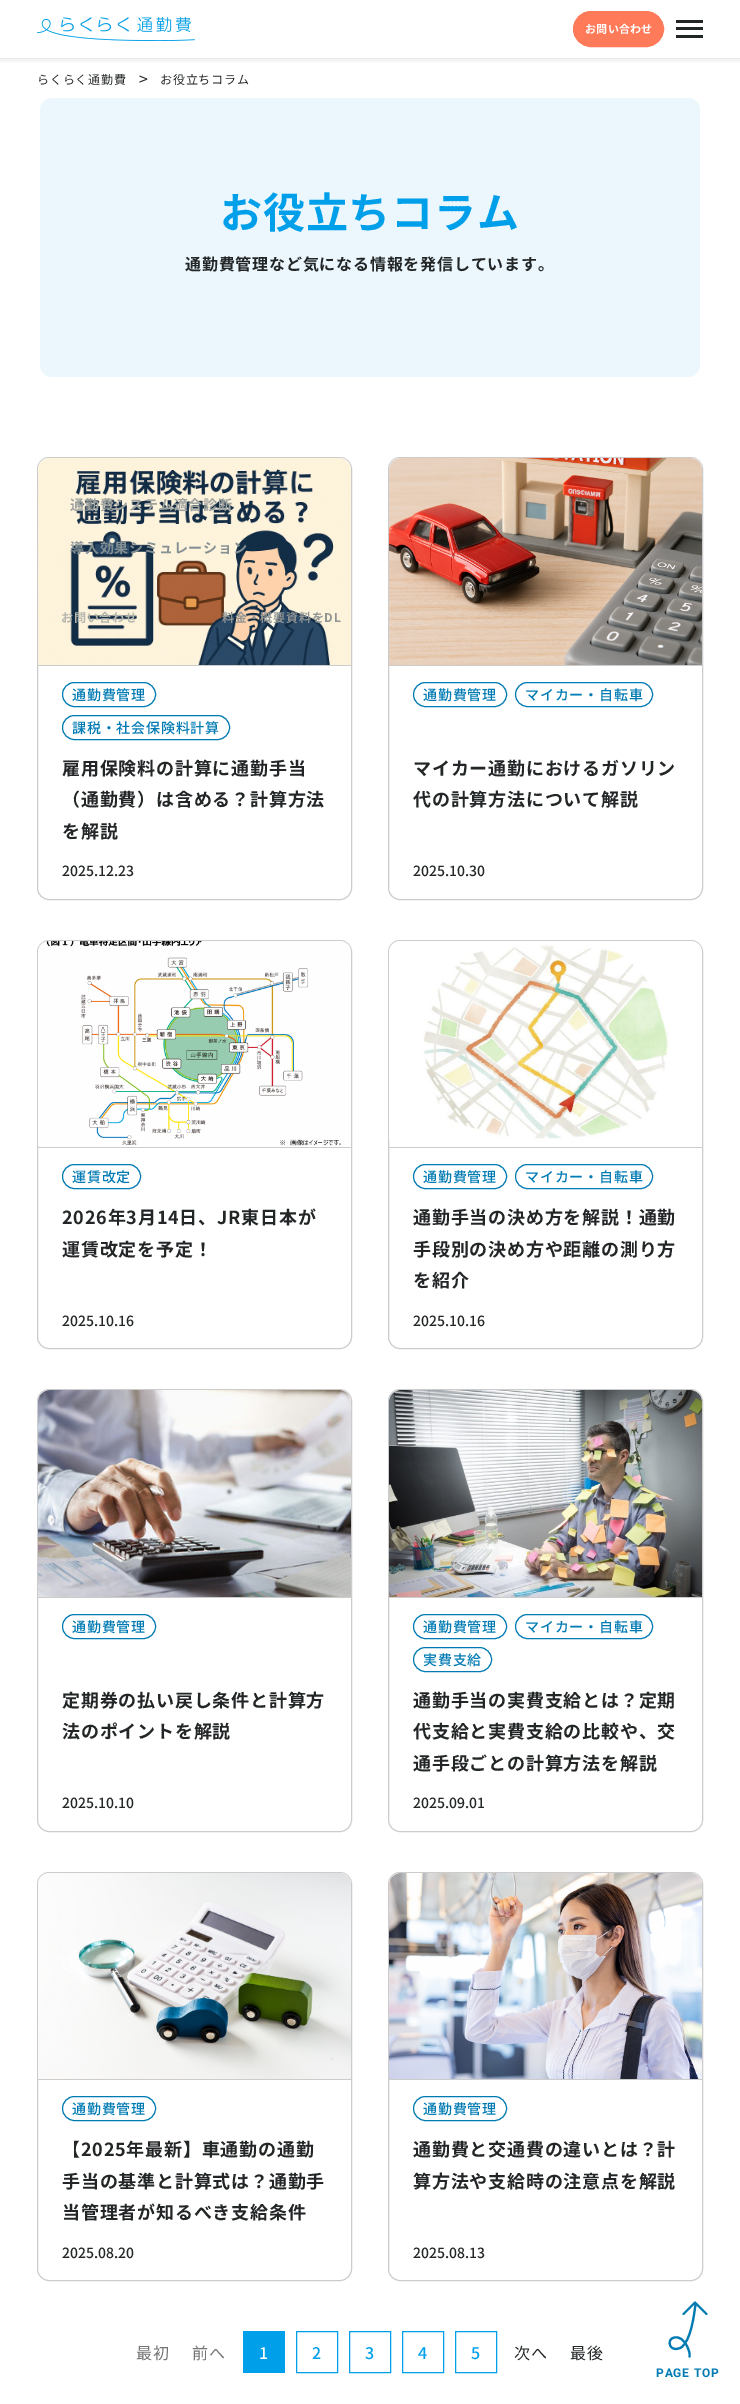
%!PS
<< /PageSize [740 2404] /PageUsesTransparency true >> setpagedevice
/rgb { 3 { 255 div 3 1 roll } repeat setrgbcolor } def
/font { [ exch dup neg 0 0 3 -1 roll 0 0 ] selectfont } def
/text { moveto show } def
/alpha { dup .setfillconstantalpha .setstrokeconstantalpha } def
/roundrect { 5 dict begin { /r /h /w /y /x } { exch def } forall
  x r add y moveto x w add y 2 copy h add r arct x w add y h add x 1 index r arct
  x y h add x y r arct x y 2 copy exch w add exch r arct closepath end } def
/shadow { 12 dict begin { /a /b /q /h /w /y /x } { exch def } forall gsave /was 0 def
  9 -2 -9 { dup b mul 4 div /e exch def 1 sub .425 mul 2.718 exch exp 1 add a .99 .min exch div /now exch def
    1 1 now sub 1 was sub div sub alpha /was now def
    w h .min e 2 mul add 0 gt { x e sub y e sub w e 2 mul add h e 2 mul add
      q e add b .6 mul add w h .min 2 div e add .min 0 .max roundrect fill } if } for grestore end } def
/picture { 5 dict begin { /h /w /y /x /name } { exch def } forall
  gsave x y translate w h scale
  w h 8 [w 0 0 h 0 0] name (r) file false 3 colorimage grestore end } def
0 .pushpdf14devicefilter
0 2404 translate 1 -1 scale
4 setmiterlimit
255 255 255 rgb
0 0 740 2404 rectfill
gsave
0 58 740 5 rectclip
0 0 0 rgb
0 0 740 58 0 4 0.16 shadow
grestore
(img_01.rgb) 37 17 158 24 picture
254 122 89 rgb
573.5 11.5 90 35 17.5 roundrect gsave fill grestore
stroke
35 38 39 rgb
676 20 27 3 rectfill
676 27 27 3 rectfill
676 35 27 3 rectfill
235 246 253 rgb
40 98 660 279 12 roundrect fill
204 204 204 rgb
37.5 457.5 314 442 11.5 roundrect stroke
(img_02.rgb) 38 458 313 207 picture
38 665 313 1 rectfill
0 122 178 rgb
62.5 682.5 93 24 12 roundrect stroke
62.5 715.5 167 24 12 roundrect stroke
204 204 204 rgb
388.5 457.5 314 442 11.5 roundrect stroke
(img_03.rgb) 389 458 313 207 picture
389 665 313 1 rectfill
0 122 178 rgb
413.5 682.5 93 24 12 roundrect stroke
515.5 682.5 137 24 12 roundrect stroke
204 204 204 rgb
37.5 940.5 314 408 11.5 roundrect stroke
(img_04.rgb) 38 941 313 205 picture
38 1147 313 1 rectfill
0 122 178 rgb
62.5 1164.5 78 24 12 roundrect stroke
204 204 204 rgb
388.5 940.5 314 408 11.5 roundrect stroke
(img_05.rgb) 389 941 313 198 picture
389 1147 313 1 rectfill
0 122 178 rgb
413.5 1164.5 93 24 12 roundrect stroke
515.5 1164.5 137 24 12 roundrect stroke
204 204 204 rgb
37.5 1389.5 314 442 11.5 roundrect stroke
(img_06.rgb) 38 1390 313 207 picture
38 1597 313 1 rectfill
0 122 178 rgb
62.5 1614.5 93 24 12 roundrect stroke
204 204 204 rgb
388.5 1389.5 314 442 11.5 roundrect stroke
(img_07.rgb) 389 1390 313 207 picture
389 1597 313 1 rectfill
0 122 178 rgb
413.5 1614.5 93 24 12 roundrect stroke
515.5 1614.5 137 24 12 roundrect stroke
413.5 1647.5 78 24 12 roundrect stroke
204 204 204 rgb
37.5 1872.5 314 408 11.5 roundrect stroke
(img_08.rgb) 38 1873 313 206 picture
38 2079 313 1 rectfill
0 122 178 rgb
62.5 2096.5 93 24 12 roundrect stroke
204 204 204 rgb
388.5 1872.5 314 408 11.5 roundrect stroke
(img_09.rgb) 389 1873 313 206 picture
389 2079 313 1 rectfill
0 122 178 rgb
413.5 2096.5 93 24 12 roundrect stroke
0 159 233 rgb
243 2331 42 42 rectfill
296.5 2331.5 41 41 rectstroke
349.5 2331.5 41 41 rectstroke
402.5 2331.5 41 41 rectstroke
455.5 2331.5 41 41 rectstroke
0 122 178 rgb
2.1 setlinewidth
1 setlinecap
1 setlinejoin
683.5 2314 moveto 11.5 -11.5 rlineto 11.5 11.5 rlineto 695.5 2304.5 moveto -1.5 10.5 -4.5 36.5 -14.5 43 rcurveto -3.5 2 -8.5 2.5 -10.5 -1.5 rcurveto -5 -8.5 11 -15.5 17.5 2.5 rcurveto 1 2 2 5.5 1.5 8 rcurveto stroke
/NotoSansJP-Bold 11 font
255 255 255 rgb
585 33 moveto 0.25 0 (お問い合わせ) ashow
/NotoSansJP-Bold 14 font
159 163 160 rgb
70 510 moveto 0.8 0 (通勤費システム適合診断) ashow
133 144 147 rgb
70 553 moveto 0.8 0 (導入効果シミュレーション) ashow
/NotoSansJP-Bold 12 font
181 182 173 rgb
61 622 moveto 0.8 0 (お問い合わせ) ashow
143 148 147 rgb
222 622 moveto 0.8 0 (料金・概要資料をDL) ashow
/NotoSansJP-Regular 12 font
35 38 39 rgb
37 84 moveto 0.8 0 (らくらく通勤費) ashow
/NotoSansJP-Regular 16 font
139 85 moveto 0.8 0 (>) ashow
/NotoSansJP-Regular 12 font
160 84 moveto 0.8 0 (お役立ちコラム) ashow
/NotoSansJP-Bold 42 font
0 159 233 rgb
220 228 moveto 0.8 0 (お役立ちコラム) ashow
/NotoSansJP-Bold 16 font
35 38 39 rgb
185 270 moveto 0.8 0 (通勤費管理など気になる情報を発信しています。) ashow
/NotoSansJP-Medium 14 font
0 122 178 rgb
72 700 moveto 0.8 0 (通勤費管理) ashow
72 733 moveto 0.8 0 (課税・社会保険料計算) ashow
/NotoSansJP-Bold 18 font
35 38 39 rgb
62 775 moveto 0.8 0 (雇用保険料の計算に通勤手当) ashow
62 806 moveto 0.8 0 (（通勤費）は含める？計算方法) ashow
62 838 moveto 0.8 0 (を解説) ashow
/NotoSansJP-Medium 14 font
(2025.12.23) 62 876 text
0 122 178 rgb
423 700 moveto 0.8 0 (通勤費管理) ashow
525 700 moveto 0.8 0 (マイカー・自転車) ashow
/NotoSansJP-Bold 18 font
35 38 39 rgb
413 775 moveto 0.8 0 (マイカー通勤におけるガソリン) ashow
413 806 moveto 0.8 0 (代の計算方法について解説) ashow
/NotoSansJP-Medium 14 font
(2025.10.30) 413 876 text
0 122 178 rgb
72 1182 moveto 0.8 0 (運賃改定) ashow
/NotoSansJP-Bold 18 font
35 38 39 rgb
62 1224 moveto 0.8 0 (2026年3月14日、JR東日本が) ashow
62 1256 moveto 0.8 0 (運賃改定を予定！) ashow
/NotoSansJP-Medium 14 font
(2025.10.16) 62 1326 text
0 122 178 rgb
423 1182 moveto 0.8 0 (通勤費管理) ashow
525 1182 moveto 0.8 0 (マイカー・自転車) ashow
/NotoSansJP-Bold 18 font
35 38 39 rgb
413 1224 moveto 0.8 0 (通勤手当の決め方を解説！通勤) ashow
413 1256 moveto 0.8 0 (手段別の決め方や距離の測り方) ashow
413 1287 moveto 0.8 0 (を紹介) ashow
/NotoSansJP-Medium 14 font
(2025.10.16) 413 1326 text
0 122 178 rgb
72 1632 moveto 0.8 0 (通勤費管理) ashow
/NotoSansJP-Bold 18 font
35 38 39 rgb
62 1707 moveto 0.8 0 (定期券の払い戻し条件と計算方) ashow
62 1738 moveto 0.8 0 (法のポイントを解説) ashow
/NotoSansJP-Medium 14 font
(2025.10.10) 62 1808 text
0 122 178 rgb
423 1632 moveto 0.8 0 (通勤費管理) ashow
525 1632 moveto 0.8 0 (マイカー・自転車) ashow
423 1665 moveto 0.8 0 (実費支給) ashow
/NotoSansJP-Bold 18 font
35 38 39 rgb
413 1707 moveto 0.8 0 (通勤手当の実費支給とは？定期) ashow
413 1738 moveto 0.8 0 (代支給と実費支給の比較や、交) ashow
413 1770 moveto 0.8 0 (通手段ごとの計算方法を解説) ashow
/NotoSansJP-Medium 14 font
(2025.09.01) 413 1808 text
0 122 178 rgb
72 2114 moveto 0.8 0 (通勤費管理) ashow
/NotoSansJP-Bold 18 font
35 38 39 rgb
62 2156 moveto 0.8 0 (【2025年最新】車通勤の通勤) ashow
62 2188 moveto 0.8 0 (手当の基準と計算式は？通勤手) ashow
62 2219 moveto 0.8 0 (当管理者が知るべき支給条件) ashow
/NotoSansJP-Medium 14 font
(2025.08.20) 62 2258 text
0 122 178 rgb
423 2114 moveto 0.8 0 (通勤費管理) ashow
/NotoSansJP-Bold 18 font
35 38 39 rgb
413 2156 moveto 0.8 0 (通勤費と交通費の違いとは？計) ashow
413 2188 moveto 0.8 0 (算方法や支給時の注意点を解説) ashow
/NotoSansJP-Medium 14 font
(2025.08.13) 413 2258 text
/NotoSansJP-Regular 16 font
117 117 117 rgb
136 2359 moveto 0.8 0 (最初) ashow
192 2359 moveto 0.8 0 (前へ) ashow
/NotoSansJP-Medium 16 font
255 255 255 rgb
259 2359 moveto 0.8 0 (1) ashow
0 159 233 rgb
312 2359 moveto 0.8 0 (2) ashow
365 2359 moveto 0.8 0 (3) ashow
418 2359 moveto 0.8 0 (4) ashow
471 2359 moveto 0.8 0 (5) ashow
/NotoSansJP-Regular 16 font
35 38 39 rgb
514 2359 moveto 0.8 0 (次へ) ashow
570 2359 moveto 0.8 0 (最後) ashow
/Roboto-Bold 12 font
0 122 178 rgb
656 2377 moveto 0.8 0 (PAGE TOP) ashow
.poppdf14devicefilter showpage
